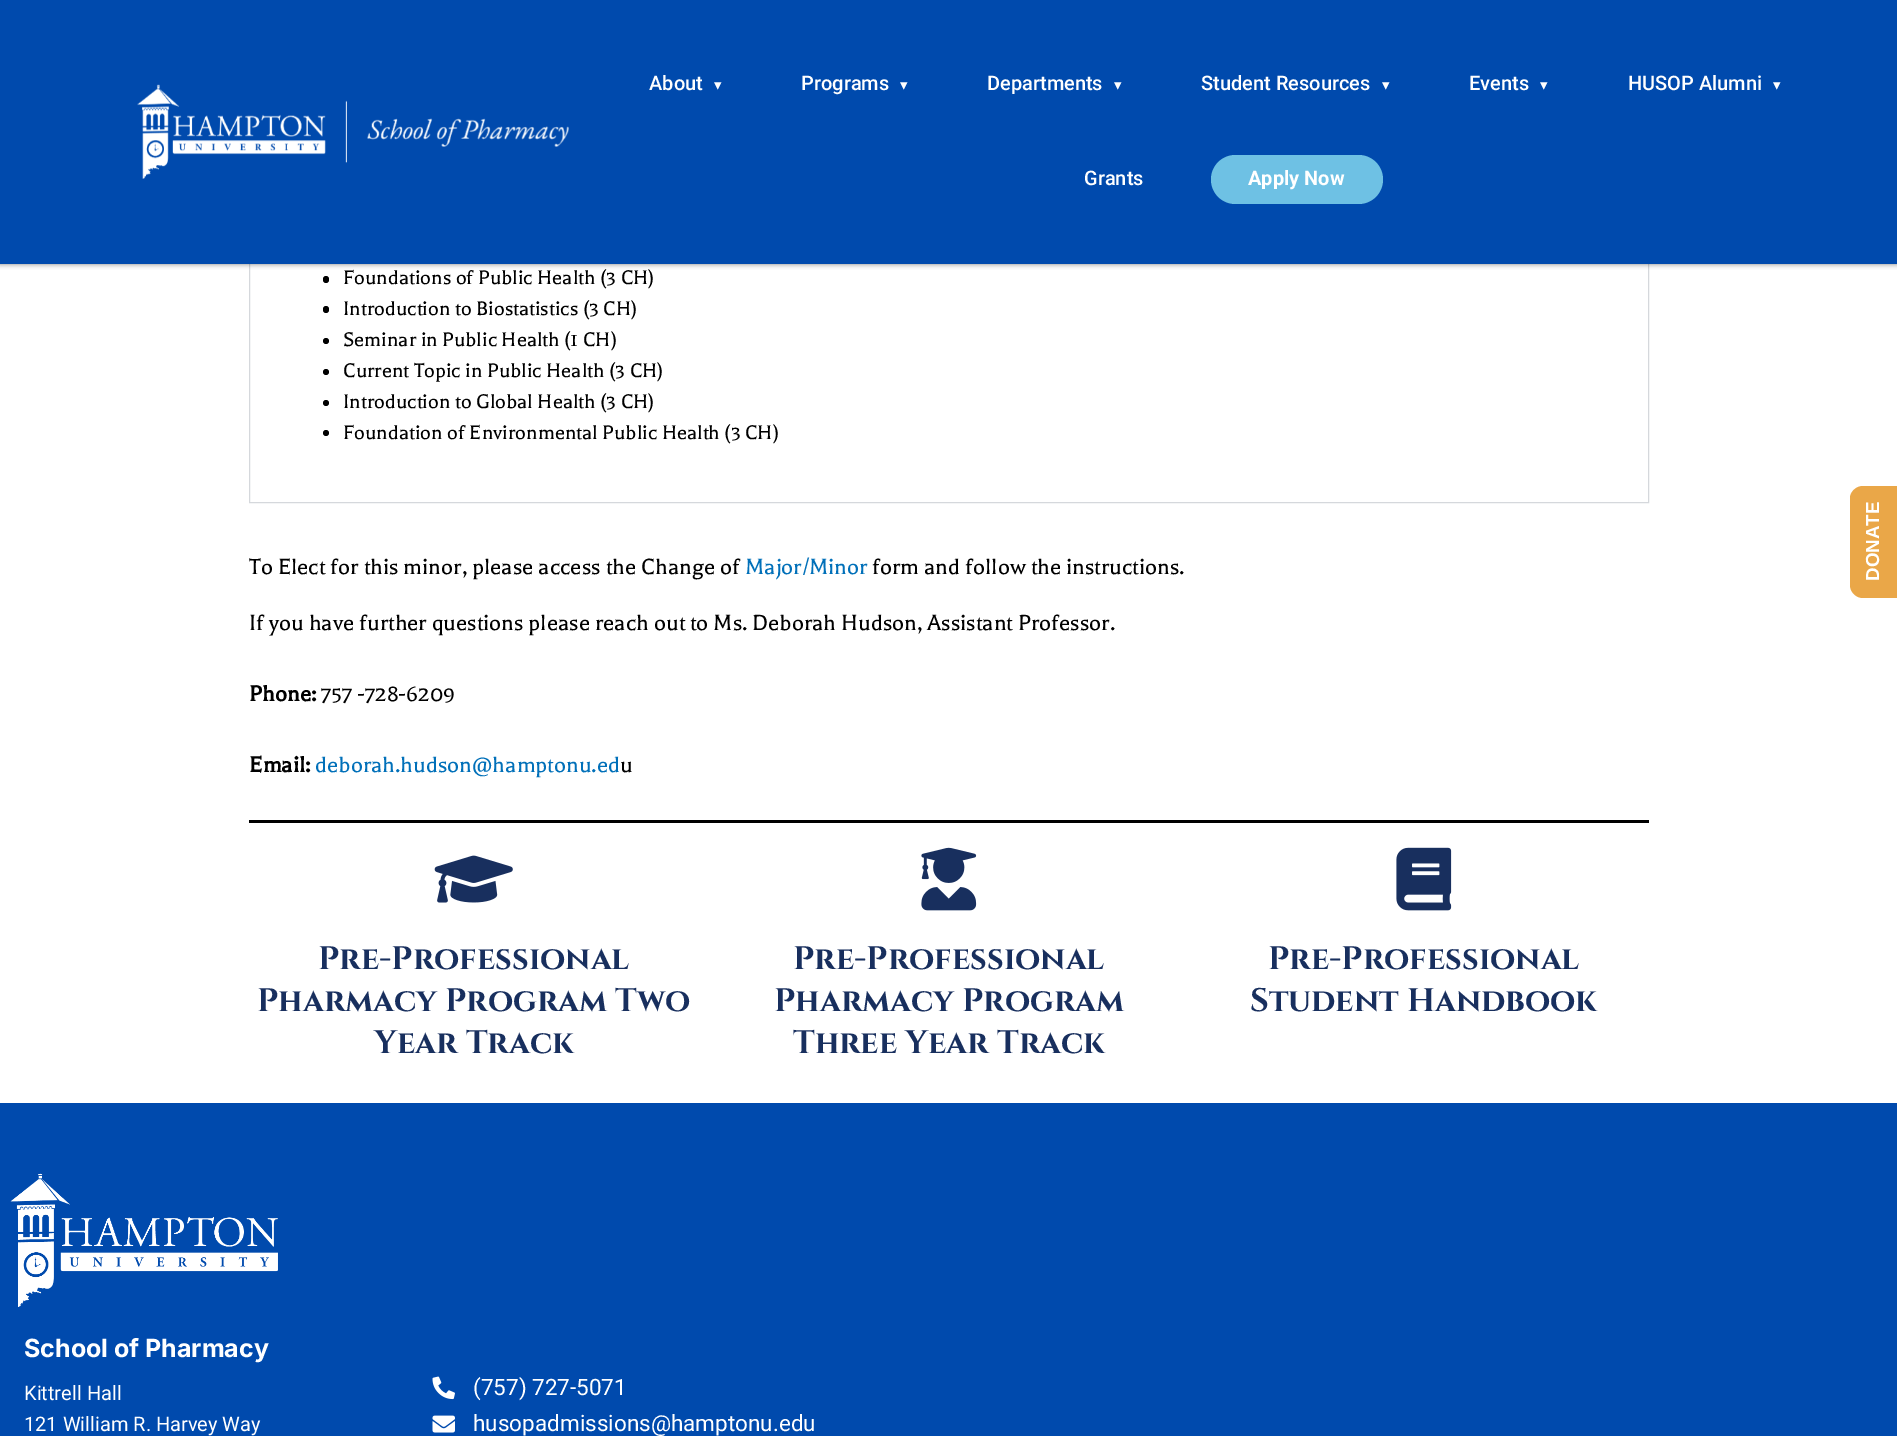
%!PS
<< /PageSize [1897 1436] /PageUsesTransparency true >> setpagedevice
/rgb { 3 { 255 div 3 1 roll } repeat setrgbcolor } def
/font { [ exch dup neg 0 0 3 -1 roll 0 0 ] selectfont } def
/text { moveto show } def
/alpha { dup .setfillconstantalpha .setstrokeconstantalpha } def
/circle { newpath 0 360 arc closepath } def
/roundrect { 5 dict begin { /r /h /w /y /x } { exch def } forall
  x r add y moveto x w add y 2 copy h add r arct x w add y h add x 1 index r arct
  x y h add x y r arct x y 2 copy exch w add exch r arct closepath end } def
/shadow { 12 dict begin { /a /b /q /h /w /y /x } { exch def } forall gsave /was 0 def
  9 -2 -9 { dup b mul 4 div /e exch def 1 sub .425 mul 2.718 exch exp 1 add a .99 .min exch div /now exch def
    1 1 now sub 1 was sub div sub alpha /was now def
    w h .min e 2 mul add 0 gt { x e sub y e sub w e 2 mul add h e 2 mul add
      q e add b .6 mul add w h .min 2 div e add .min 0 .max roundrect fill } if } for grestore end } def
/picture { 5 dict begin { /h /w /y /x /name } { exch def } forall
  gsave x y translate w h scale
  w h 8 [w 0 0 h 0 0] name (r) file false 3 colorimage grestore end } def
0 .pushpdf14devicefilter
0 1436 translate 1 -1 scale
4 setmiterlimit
255 255 255 rgb
0 0 1897 1436 rectfill
213 216 220 rgb
249.5 155.5 1399 347 rectstroke
0 0 0 rgb
0 -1 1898 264 0 3 0.75 shadow
0 74 173 rgb
0 0 1897 264 rectfill
(img_01.rgb) 137 84 432 95 picture
110 193 228 rgb
1211 155 172 49 24.5 roundrect fill
0 0 0 rgb
323 276 6 7 3 roundrect fill
323 306 6 7 3 roundrect fill
326 341 3 circle fill
326 372 3 circle fill
326 403 3 circle fill
326 433 3 circle fill
249 820 1400 3 rectfill
(img_02.rgb) 434 855 79 48 picture
(img_03.rgb) 921 847 56 64 picture
(img_04.rgb) 1396 847 56 64 picture
0 74 173 rgb
0 1103 1897 333 rectfill
(img_05.rgb) 10 1173 268 134 picture
(img_06.rgb) 432 1376 23 24 picture
(img_07.rgb) 432 1415 23 18 picture
234 167 72 rgb
1850 585 moveto 0 -87 rlineto 0 -6 6 -12 13 -12 rcurveto 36 0 rlineto 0 112 rlineto -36 0 rlineto -7 0 -13 -6 -13 -13 rcurveto closepath fill
/Roboto-Medium 20 font
255 255 255 rgb
(About) 649 90 text
/DejaVuSans-Regular 15 font
(▾) 714 90 text
/Roboto-Medium 20 font
(Programs) 801 90 text
/DejaVuSans-Regular 15 font
(▾) 900 90 text
/Roboto-Medium 20 font
(Departments) 987 90 text
/DejaVuSans-Regular 15 font
(▾) 1114 90 text
/Roboto-Medium 20 font
(Student Resources) 1201 90 text
/DejaVuSans-Regular 15 font
(▾) 1382 90 text
/Roboto-Medium 20 font
(Events) 1469 90 text
/DejaVuSans-Regular 15 font
(▾) 1540 90 text
/Roboto-Medium 20 font
(HUSOP Alumni) 1628 90 text
/DejaVuSans-Regular 15 font
(▾) 1773 90 text
/Roboto-Medium 20 font
(Grants) 1084 185 text
/Roboto-Bold 20 font
(Apply Now) 1248 185 text
/Balthazar-Regular 22.5 font
0 0 0 rgb
(Foundations of Public Health \(3 CH\)) 343 284 text
(Introduction to Biostatistics \(3 CH\)) 343 315 text
(Seminar in Public Health \(1 CH\)) 343 346 text
(Current Topic in Public Health \(3 CH\)) 343 377 text
(Introduction to Global Health \(3 CH\)) 343 408 text
(Foundation of Environmental Public Health \(3 CH\)) 343 439 text
/Balthazar-Regular 25 font
(To Elect for this minor, please access the Change of) 249 574 text
1 112 185 rgb
(Major/Minor) 745 574 text
0 0 0 rgb
(form and follow the instructions.) 872 574 text
(If you have further questions please reach out to Ms. Deborah Hudson, Assistant Professor.) 249 630 text
/Balthazar-Bold 25 font
(Phone:) 249 701 text
/Balthazar-Regular 25 font
(757 -728-6209) 321 701 text
/Balthazar-Bold 25 font
(Email:) 249 772 text
/Balthazar-Regular 25 font
1 112 185 rgb
(deborah.hudson@hamptonu.ed) 315 772 text
0 0 0 rgb
(u) 620 772 text
/Cinzel-Bold 32.5 font
24 47 94 rgb
(Pre-Professional) 318 969 text
(Pharmacy Program Two) 257 1011 text
(Year Track) 374 1053 text
(Pre-Professional) 793 969 text
(Pharmacy Program) 774 1011 text
(Three Year Track) 793 1053 text
(Pre-Professional) 1268 969 text
(Student Handbook) 1250 1011 text
/Inter-Bold 25 font
255 255 255 rgb
(School of Pharmacy) 24 1357 text
/Roboto-Regular 20 font
(Kittrell Hall) 24 1400 text
(121 William R. Harvey Way) 24 1431 text
/Roboto-Regular 22.5 font
(\(757\) 727-5071) 473 1395 text
(husopadmissions@hamptonu.edu) 473 1431 text
/LiberationSans-Bold 18.75 font
gsave 1879 581 translate -90 rotate 0 0 moveto (DONATE) show grestore
.poppdf14devicefilter showpage
